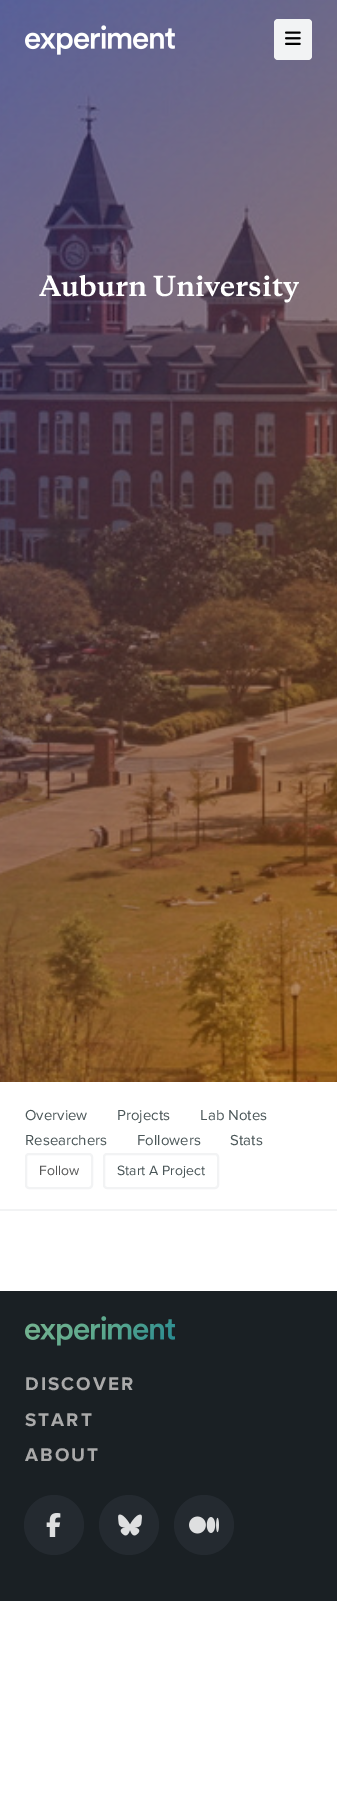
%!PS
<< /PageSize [337 1805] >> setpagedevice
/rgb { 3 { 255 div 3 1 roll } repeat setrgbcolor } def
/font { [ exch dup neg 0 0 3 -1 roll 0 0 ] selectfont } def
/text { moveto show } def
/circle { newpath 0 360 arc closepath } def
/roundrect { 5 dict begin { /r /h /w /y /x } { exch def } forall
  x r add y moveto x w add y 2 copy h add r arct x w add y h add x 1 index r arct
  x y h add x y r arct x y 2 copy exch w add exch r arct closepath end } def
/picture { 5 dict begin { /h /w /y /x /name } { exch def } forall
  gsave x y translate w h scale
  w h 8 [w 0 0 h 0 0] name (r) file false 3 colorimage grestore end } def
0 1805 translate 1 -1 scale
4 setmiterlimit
255 255 255 rgb
0 0 337 1805 rectfill
(img_03.rgb) 0 0 337 1082 picture
(img_01.rgb) 25 25 150 30 picture
242 243 244 rgb
274 19 38 41 4 roundrect fill
(img_02.rgb) 285 31 16 14 picture
0 1209 337 2 rectfill
2 setlinewidth
26 1154 66 34 3 roundrect stroke
104 1154 114 34 3 roundrect stroke
26 32 36 rgb
0 1291 337 310 rectfill
(img_04.rgb) 25 1316 150 30 picture
36 42 48 rgb
54 1525 30 circle fill
(img_05.rgb) 46 1513 15 24 picture
129 1525 30 circle fill
(img_06.rgb) 118 1514 24 22 picture
204 1525 30 circle fill
(img_07.rgb) 189 1516 30 18 picture
/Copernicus-Bold 26 font
255 255 255 rgb
(Auburn University) 39 296 text
/ProximaNova-Regular 15 font
74 86 88 rgb
(Overview) 25 1120 text
(Projects) 117 1120 text
(Lab Notes) 200 1120 text
(Researchers) 25 1145 text
(Followers) 137 1145 text
(Stats) 230 1145 text
/ProximaNova-Regular 14 font
85 85 85 rgb
(Follow) 39 1175 text
74 86 88 rgb
(Start A Project) 117 1175 text
/ProximaNova-Bold 19 font
170 170 170 rgb
25 1390 moveto 2 0 (DISCOVER) ashow
25 1426 moveto 2 0 (START) ashow
25 1461 moveto 2 0 (ABOUT) ashow
showpage
